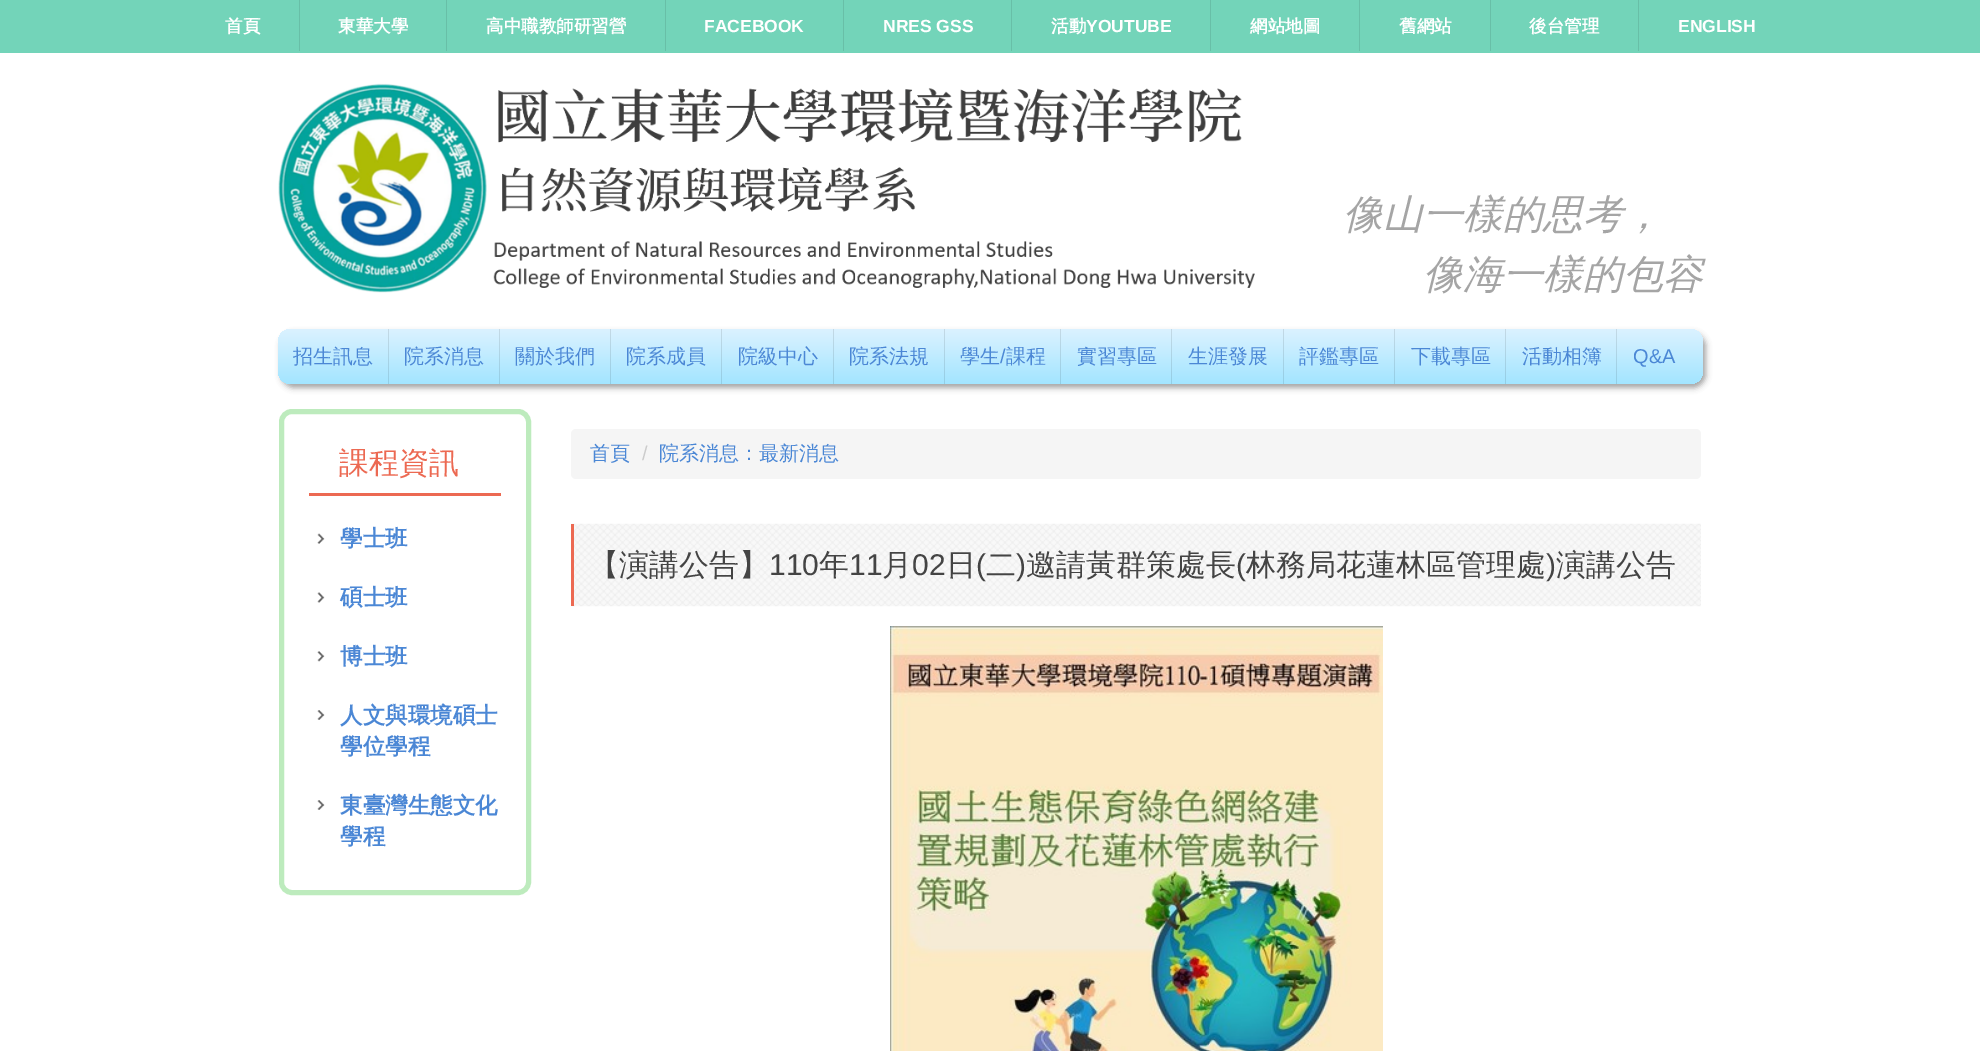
%!PS
<< /PageSize [1980 1051] /PageUsesTransparency true >> setpagedevice
/rgb { 3 { 255 div 3 1 roll } repeat setrgbcolor } def
/font { [ exch dup neg 0 0 3 -1 roll 0 0 ] selectfont } def
/text { moveto show } def
/alpha { dup .setfillconstantalpha .setstrokeconstantalpha } def
/roundrect { 5 dict begin { /r /h /w /y /x } { exch def } forall
  x r add y moveto x w add y 2 copy h add r arct x w add y h add x 1 index r arct
  x y h add x y r arct x y 2 copy exch w add exch r arct closepath end } def
/shadow { 12 dict begin { /a /b /q /h /w /y /x } { exch def } forall gsave /was 0 def
  9 -2 -9 { dup b mul 4 div /e exch def 1 sub .425 mul 2.718 exch exp 1 add a .99 .min exch div /now exch def
    1 1 now sub 1 was sub div sub alpha /was now def
    w h .min e 2 mul add 0 gt { x e sub y e sub w e 2 mul add h e 2 mul add
      q e add b .6 mul add w h .min 2 div e add .min 0 .max roundrect fill } if } for grestore end } def
/picture { 5 dict begin { /h /w /y /x /name } { exch def } forall
  gsave x y translate w h scale
  w h 8 [w 0 0 h 0 0] name (r) file false 3 colorimage grestore end } def
0 .pushpdf14devicefilter
0 1051 translate 1 -1 scale
4 setmiterlimit
255 255 255 rgb
0 0 1980 1051 rectfill
115 212 185 rgb
0 0 1980 53 rectfill
104 191 167 rgb
299 0 1 51 rectfill
446 0 1 51 rectfill
665 0 1 51 rectfill
843 0 1 51 rectfill
1011 0 1 51 rectfill
1210 0 1 51 rectfill
1359 0 1 51 rectfill
1490 0 1 51 rectfill
1638 0 1 51 rectfill
(img_01.rgb) 278 83 977 210 picture
163 163 163 rgb
281 333 1425 55 13 3 1 shadow
gsave 278 329 1425 55 13 roundrect clip newpath
<< /ShadingType 2 /ColorSpace /DeviceRGB /Coords [990 329 990 384] /Extend [true true] /Function << /FunctionType 2 /Domain [0 1] /C0 [0.859 0.949 1] /C1 [0.639 0.898 1] /N 1 >> >> shfill grestore
0.1 alpha
0 0 0 rgb
388 329 1 55 rectfill
499 329 1 55 rectfill
610 329 1 55 rectfill
721 329 1 55 rectfill
833 329 1 55 rectfill
944 329 1 55 rectfill
1060 329 1 55 rectfill
1171 329 1 55 rectfill
1283 329 1 55 rectfill
1394 329 1 55 rectfill
1505 329 1 55 rectfill
1616 329 1 55 rectfill
1 alpha
189 235 189 rgb
5 setlinewidth
281.5 411.5 247 481 10.5 roundrect stroke
236 105 82 rgb
309 493 192 3 rectfill
(img_02.rgb) 317 533 8 11 picture
(img_03.rgb) 317 592 8 11 picture
(img_04.rgb) 317 651 8 11 picture
(img_05.rgb) 317 710 8 10 picture
(img_05.rgb) 317 800 8 10 picture
245 245 245 rgb
571 429 1130 50 5 roundrect fill
(img_06.rgb) 571 523 1130 84 picture
236 105 82 rgb
571 524 3 82 rectfill
(img_07.rgb) 890 626 493 425 picture
/WenQuanYiZenHei-Bold 17.5 font
255 255 255 rgb
(首頁) 225 32 text
(東華大學) 338 32 text
(高中職教師研習營) 486 32 text
/LiberationSans-Bold 17.5 font
(FACEBOOK) 704 32 text
(NRES GSS) 883 32 text
/WenQuanYiZenHei-Bold 17.5 font
(活動) 1051 32 text
/LiberationSans-Bold 17.5 font
(YOUTUBE) 1086 32 text
/WenQuanYiZenHei-Bold 17.5 font
(網站地圖) 1250 32 text
(舊網站) 1399 32 text
(後台管理) 1529 32 text
/LiberationSans-Bold 17.5 font
(ENGLISH) 1678 32 text
/WenQuanYiZenHei-MediumItalic 40 font
165 165 165 rgb
(像山一樣的思考，) 1343 228 text
(像海一樣的包容) 1423 288 text
/WenQuanYiZenHei-Medium 20 font
75 135 213 rgb
(招生訊息) 293 363 text
(院系消息) 404 363 text
(關於我們) 515 363 text
(院系成員) 626 363 text
(院級中心) 738 363 text
(院系法規) 849 363 text
(學生) 960 363 text
/LiberationSans-Regular 20 font
(/) 1000 363 text
/WenQuanYiZenHei-Medium 20 font
(課程) 1006 363 text
(實習專區) 1077 363 text
(生涯發展) 1188 363 text
(評鑑專區) 1299 363 text
(下載專區) 1411 363 text
(活動相簿) 1522 363 text
/LiberationSans-Regular 20 font
(Q&A) 1633 363 text
/WenQuanYiZenHei-Medium 30 font
236 105 82 rgb
(課程資訊) 339 473 text
/WenQuanYiZenHei-Bold 22.5 font
75 135 213 rgb
(學士班) 340 546 text
(碩士班) 340 605 text
(博士班) 340 664 text
(人文與環境碩士) 340 723 text
(學位學程) 340 754 text
(東臺灣生態文化) 340 813 text
(學程) 340 844 text
/WenQuanYiZenHei-Medium 20 font
(首頁) 590 460 text
/LiberationSans-Regular 20 font
204 204 204 rgb
(/) 642 460 text
/WenQuanYiZenHei-Medium 20 font
75 135 213 rgb
(院系消息：最新消息) 659 460 text
/WenQuanYiZenHei-Medium 30 font
68 68 68 rgb
(【演講公告】) 589 575 text
/LiberationSans-Regular 30 font
(110) 769 575 text
/WenQuanYiZenHei-Medium 30 font
(年) 819 575 text
/LiberationSans-Regular 30 font
(11) 849 575 text
/WenQuanYiZenHei-Medium 30 font
(月) 882 575 text
/LiberationSans-Regular 30 font
(02) 912 575 text
/WenQuanYiZenHei-Medium 30 font
(日) 946 575 text
/LiberationSans-Regular 30 font
(\() 976 575 text
/WenQuanYiZenHei-Medium 30 font
(二) 986 575 text
/LiberationSans-Regular 30 font
(\)) 1016 575 text
/WenQuanYiZenHei-Medium 30 font
(邀請黃群策處長) 1026 575 text
/LiberationSans-Regular 30 font
(\() 1236 575 text
/WenQuanYiZenHei-Medium 30 font
(林務局花蓮林區管理處) 1246 575 text
/LiberationSans-Regular 30 font
(\)) 1546 575 text
/WenQuanYiZenHei-Medium 30 font
(演講公告) 1556 575 text
.poppdf14devicefilter showpage
